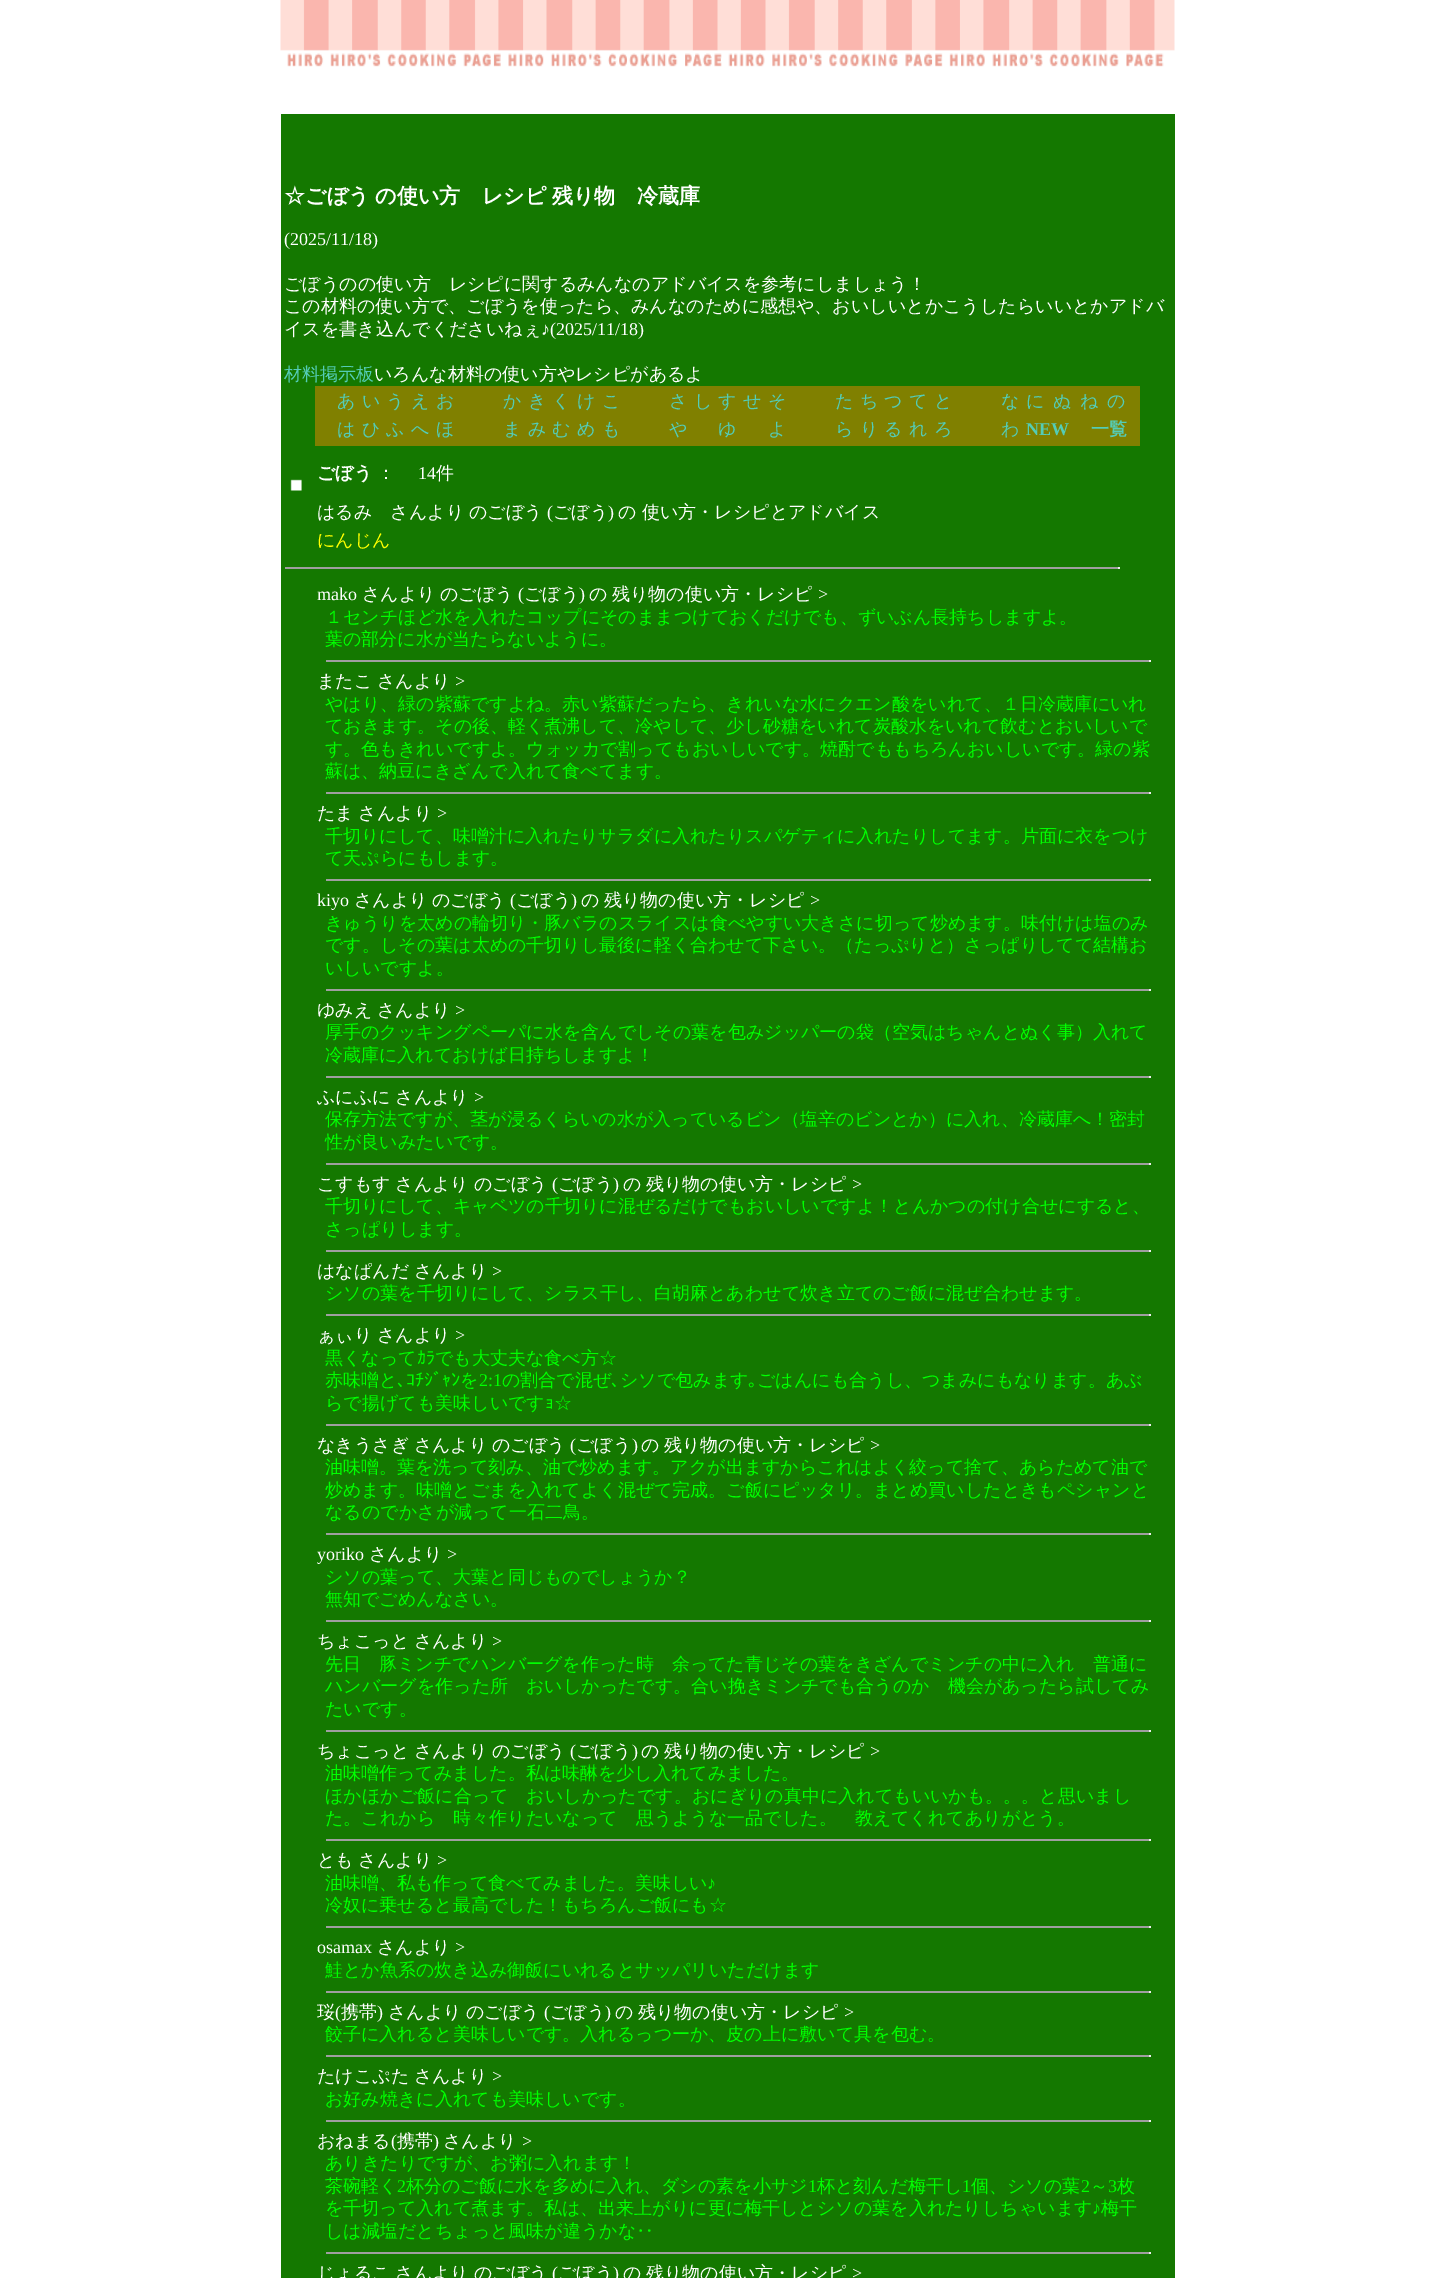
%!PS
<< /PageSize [1453 2278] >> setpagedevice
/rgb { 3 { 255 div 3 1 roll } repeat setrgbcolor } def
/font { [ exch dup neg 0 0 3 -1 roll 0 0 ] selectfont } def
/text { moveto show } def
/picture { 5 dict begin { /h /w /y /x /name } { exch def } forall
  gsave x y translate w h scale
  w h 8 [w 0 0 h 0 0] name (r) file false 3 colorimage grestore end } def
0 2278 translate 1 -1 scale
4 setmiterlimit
255 255 255 rgb
0 0 1453 2278 rectfill
(img_01.rgb) 280 0 895 67 picture
20 120 0 rgb
281 114 894 2164 rectfill
128 128 0 rgb
315 386 825 60 rectfill
(img_02.rgb) 290 479 12 12 picture
159 159 159 rgb
285 567 834 2 rectfill
238 238 238 rgb
1118 567 2 2 rectfill
159 159 159 rgb
326 660 825 2 rectfill
238 238 238 rgb
1149 660 2 2 rectfill
159 159 159 rgb
326 792 825 2 rectfill
238 238 238 rgb
1149 792 2 2 rectfill
159 159 159 rgb
326 879 825 2 rectfill
238 238 238 rgb
1149 879 2 2 rectfill
159 159 159 rgb
326 989 825 2 rectfill
238 238 238 rgb
1149 989 2 2 rectfill
159 159 159 rgb
326 1076 825 2 rectfill
238 238 238 rgb
1149 1076 2 2 rectfill
159 159 159 rgb
326 1163 825 2 rectfill
238 238 238 rgb
1149 1163 2 2 rectfill
159 159 159 rgb
326 1250 825 2 rectfill
238 238 238 rgb
1149 1250 2 2 rectfill
159 159 159 rgb
326 1314 825 2 rectfill
238 238 238 rgb
1149 1314 2 2 rectfill
159 159 159 rgb
326 1424 825 2 rectfill
238 238 238 rgb
1149 1424 2 2 rectfill
159 159 159 rgb
326 1533 825 2 rectfill
238 238 238 rgb
1149 1533 2 2 rectfill
159 159 159 rgb
326 1620 825 2 rectfill
238 238 238 rgb
1149 1620 2 2 rectfill
159 159 159 rgb
326 1730 825 2 rectfill
238 238 238 rgb
1149 1730 2 2 rectfill
159 159 159 rgb
326 1839 825 2 rectfill
238 238 238 rgb
1149 1839 2 2 rectfill
159 159 159 rgb
326 1926 825 2 rectfill
238 238 238 rgb
1149 1926 2 2 rectfill
159 159 159 rgb
326 1991 825 2 rectfill
238 238 238 rgb
1149 1991 2 2 rectfill
159 159 159 rgb
326 2055 825 2 rectfill
238 238 238 rgb
1149 2055 2 2 rectfill
159 159 159 rgb
326 2120 825 2 rectfill
238 238 238 rgb
1149 2120 2 2 rectfill
159 159 159 rgb
326 2252 825 2 rectfill
238 238 238 rgb
1149 2252 2 2 rectfill
/WenQuanYiZenHei-Bold 21.1 font
255 255 255 rgb
284 203 moveto -1 0 32 (☆ごぼう の使い方　レシピ 残り物　冷蔵庫) widthshow
/LiberationSerif-Regular 18 font
(\(2025/11/18\)) 284 245 text
/WenQuanYiZenHei-Medium 18 font
(ごぼうのの使い方　レシピに関するみんなのアドバイスを参考にしましょう！) 284 290 text
(この材料の使い方で、ごぼうを使ったら、みんなのために感想や、おいしいとかこうしたらいいとかアドバ) 284 312 text
(イスを書き込んでくださいねぇ) 284 335 text
/LiberationSerif-Regular 18 font
(♪\(2025/11/18\)) 541 335 text
/WenQuanYiZenHei-Medium 18 font
84 204 182 rgb
(材料掲示板) 284 380 text
255 255 255 rgb
(いろんな材料の使い方やレシピがあるよ) 374 380 text
84 204 182 rgb
(あ) 337 407 text
(い) 362 407 text
(う) 386 407 text
(え) 411 407 text
(お) 436 407 text
(か) 503 407 text
(き) 528 407 text
(く) 552 407 text
(け) 577 407 text
(こ) 602 407 text
(さ) 669 407 text
(し) 694 407 text
(す) 718 407 text
(せ) 743 407 text
(そ) 768 407 text
(た) 835 407 text
(ち) 860 407 text
(つ) 884 407 text
(て) 909 407 text
(と) 934 407 text
(な) 1001 407 text
(に) 1026 407 text
(ぬ) 1053 407 text
(ね) 1080 407 text
(の) 1107 407 text
(は) 337 435 text
(ひ) 362 435 text
(ふ) 386 435 text
(へ) 411 435 text
(ほ) 436 435 text
(ま) 503 435 text
(み) 528 435 text
(む) 552 435 text
(め) 577 435 text
(も) 602 435 text
(や) 669 435 text
(ゆ) 718 435 text
(よ) 768 435 text
(ら) 835 435 text
(り) 860 435 text
(る) 884 435 text
(れ) 909 435 text
(ろ) 934 435 text
(わ) 1001 435 text
/LiberationSerif-Bold 18 font
(NEW) 1026 435 text
/WenQuanYiZenHei-Bold 18 font
(一覧) 1091 435 text
255 255 255 rgb
(ごぼう) 317 479 text
/WenQuanYiZenHei-Medium 18 font
(：) 377 479 text
/LiberationSerif-Regular 18 font
(14) 418 479 text
/WenQuanYiZenHei-Medium 18 font
(件) 436 479 text
(はるみ　さんより) 317 518 text
(のごぼう) 469 518 text
/LiberationSerif-Regular 18 font
(\() 547 518 text
/WenQuanYiZenHei-Medium 18 font
(ごぼう) 553 518 text
/LiberationSerif-Regular 18 font
(\)) 608 518 text
/WenQuanYiZenHei-Medium 18 font
(の 使い方・レシピとアドバイス) 618 518 text
255 255 0 rgb
(にんじん) 317 546 text
/LiberationSerif-Regular 18 font
255 255 255 rgb
(mako) 317 600 text
/WenQuanYiZenHei-Medium 18 font
(さんより) 362 600 text
(のごぼう) 440 600 text
/LiberationSerif-Regular 18 font
(\() 518 600 text
/WenQuanYiZenHei-Medium 18 font
(ごぼう) 524 600 text
/LiberationSerif-Regular 18 font
(\)) 579 600 text
/WenQuanYiZenHei-Medium 18 font
589 600 moveto -1 0 32 (の 残り物の使い方・レシピ) widthshow
/LiberationSerif-Regular 18 font
(>) 818 600 text
/WenQuanYiZenHei-Medium 18 font
0 255 0 rgb
(１センチほど水を入れたコップにそのままつけておくだけでも、ずいぶん長持ちしますよ。) 325 623 text
(葉の部分に水が当たらないように。) 325 645 text
255 255 255 rgb
317 687 moveto -1 0 32 (またこ さんより) widthshow
/LiberationSerif-Regular 18 font
(>) 455 687 text
/WenQuanYiZenHei-Medium 18 font
0 255 0 rgb
(やはり、緑の紫蘇ですよね。赤い紫蘇だったら、きれいな水にクエン酸をいれて、１日冷蔵庫にいれ) 325 710 text
(ておきます。その後、軽く煮沸して、冷やして、少し砂糖をいれて炭酸水をいれて飲むとおいしいで) 325 732 text
(す。色もきれいですよ。ウォッカで割ってもおいしいです。焼酎でももちろんおいしいです。緑の紫) 325 755 text
(蘇は、納豆にきざんで入れて食べてます。) 325 777 text
255 255 255 rgb
317 819 moveto -1 0 32 (たま さんより) widthshow
/LiberationSerif-Regular 18 font
(>) 437 819 text
/WenQuanYiZenHei-Medium 18 font
0 255 0 rgb
(千切りにして、味噌汁に入れたりサラダに入れたりスパゲティに入れたりしてます。片面に衣をつけ) 325 842 text
(て天ぷらにもします。) 325 864 text
/LiberationSerif-Regular 18 font
255 255 255 rgb
(kiyo) 317 906 text
/WenQuanYiZenHei-Medium 18 font
(さんより) 354 906 text
(のごぼう) 432 906 text
/LiberationSerif-Regular 18 font
(\() 510 906 text
/WenQuanYiZenHei-Medium 18 font
(ごぼう) 516 906 text
/LiberationSerif-Regular 18 font
(\)) 571 906 text
/WenQuanYiZenHei-Medium 18 font
581 906 moveto -1 0 32 (の 残り物の使い方・レシピ) widthshow
/LiberationSerif-Regular 18 font
(>) 810 906 text
/WenQuanYiZenHei-Medium 18 font
0 255 0 rgb
(きゅうりを太めの輪切り・豚バラのスライスは食べやすい大きさに切って炒めます。味付けは塩のみ) 325 929 text
(です。しその葉は太めの千切りし最後に軽く合わせて下さい。（たっぷりと）さっぱりしてて結構お) 325 951 text
(いしいですよ。) 325 974 text
255 255 255 rgb
317 1016 moveto -1 0 32 (ゆみえ さんより) widthshow
/LiberationSerif-Regular 18 font
(>) 455 1016 text
/WenQuanYiZenHei-Medium 18 font
0 255 0 rgb
(厚手のクッキングペーパに水を含んでしその葉を包みジッパーの袋（空気はちゃんとぬく事）入れて) 325 1038 text
(冷蔵庫に入れておけば日持ちしますよ！) 325 1061 text
255 255 255 rgb
317 1103 moveto -1 0 32 (ふにふに さんより) widthshow
/LiberationSerif-Regular 18 font
(>) 474 1103 text
/WenQuanYiZenHei-Medium 18 font
0 255 0 rgb
(保存方法ですが、茎が浸るくらいの水が入っているビン（塩辛のビンとか）に入れ、冷蔵庫へ！密封) 325 1125 text
(性が良いみたいです。) 325 1148 text
255 255 255 rgb
317 1190 moveto -1 0 32 (こすもす さんより) widthshow
(のごぼう) 474 1190 text
/LiberationSerif-Regular 18 font
(\() 552 1190 text
/WenQuanYiZenHei-Medium 18 font
(ごぼう) 558 1190 text
/LiberationSerif-Regular 18 font
(\)) 613 1190 text
/WenQuanYiZenHei-Medium 18 font
623 1190 moveto -1 0 32 (の 残り物の使い方・レシピ) widthshow
/LiberationSerif-Regular 18 font
(>) 852 1190 text
/WenQuanYiZenHei-Medium 18 font
0 255 0 rgb
(千切りにして、キャベツの千切りに混ぜるだけでもおいしいですよ！とんかつの付け合せにすると、) 325 1212 text
(さっぱりします。) 325 1235 text
255 255 255 rgb
317 1277 moveto -1 0 32 (はなぱんだ さんより) widthshow
/LiberationSerif-Regular 18 font
(>) 492 1277 text
/WenQuanYiZenHei-Medium 18 font
0 255 0 rgb
(シソの葉を千切りにして、シラス干し、白胡麻とあわせて炊き立てのご飯に混ぜ合わせます。) 325 1299 text
255 255 255 rgb
317 1341 moveto -1 0 32 (ぁぃり さんより) widthshow
/LiberationSerif-Regular 18 font
(>) 455 1341 text
/WenQuanYiZenHei-Medium 18 font
0 255 0 rgb
(黒くなって) 325 1364 text
/IPAGothic-Regular 18 font
(ｶﾗ) 417 1364 text
/WenQuanYiZenHei-Medium 18 font
(でも大丈夫な食べ方☆) 435 1364 text
(赤味噌と) 325 1386 text
/IPAGothic-Regular 18 font
(､ｺﾁｼﾞｬﾝ) 397 1386 text
/WenQuanYiZenHei-Medium 18 font
(を) 460 1386 text
/LiberationSerif-Regular 18 font
(2:1) 479 1386 text
/WenQuanYiZenHei-Medium 18 font
(の割合で混ぜ) 502 1386 text
/IPAGothic-Regular 18 font
(､) 611 1386 text
/WenQuanYiZenHei-Medium 18 font
(シソで包みます) 620 1386 text
/IPAGothic-Regular 18 font
(｡) 748 1386 text
/WenQuanYiZenHei-Medium 18 font
(ごはんにも合うし、つまみにもなります。あぶ) 757 1386 text
(らで揚げても美味しいです) 325 1409 text
/IPAGothic-Regular 18 font
(ｮ) 545 1409 text
/WenQuanYiZenHei-Medium 18 font
(☆) 554 1409 text
255 255 255 rgb
317 1451 moveto -1 0 32 (なきうさぎ さんより) widthshow
(のごぼう) 492 1451 text
/LiberationSerif-Regular 18 font
(\() 570 1451 text
/WenQuanYiZenHei-Medium 18 font
(ごぼう) 576 1451 text
/LiberationSerif-Regular 18 font
(\)) 632 1451 text
/WenQuanYiZenHei-Medium 18 font
641 1451 moveto -1 0 32 (の 残り物の使い方・レシピ) widthshow
/LiberationSerif-Regular 18 font
(>) 870 1451 text
/WenQuanYiZenHei-Medium 18 font
0 255 0 rgb
(油味噌。葉を洗って刻み、油で炒めます。アクが出ますからこれはよく絞って捨て、あらためて油で) 325 1473 text
(炒めます。味噌とごまを入れてよく混ぜて完成。ご飯にピッタリ。まとめ買いしたときもペシャンと) 325 1496 text
(なるのでかさが減って一石二鳥。) 325 1518 text
/LiberationSerif-Regular 18 font
255 255 255 rgb
(yoriko) 317 1560 text
/WenQuanYiZenHei-Medium 18 font
(さんより) 369 1560 text
/LiberationSerif-Regular 18 font
(>) 447 1560 text
/WenQuanYiZenHei-Medium 18 font
0 255 0 rgb
(シソの葉って、大葉と同じものでしょうか？) 325 1583 text
(無知でごめんなさい。) 325 1605 text
255 255 255 rgb
317 1647 moveto -1 0 32 (ちょこっと さんより) widthshow
/LiberationSerif-Regular 18 font
(>) 492 1647 text
/WenQuanYiZenHei-Medium 18 font
0 255 0 rgb
(先日　豚ミンチでハンバーグを作った時　余ってた青じその葉をきざんでミンチの中に入れ　普通に) 325 1670 text
(ハンバーグを作った所　おいしかったです。合い挽きミンチでも合うのか　機会があったら試してみ) 325 1692 text
(たいです。) 325 1715 text
255 255 255 rgb
317 1757 moveto -1 0 32 (ちょこっと さんより) widthshow
(のごぼう) 492 1757 text
/LiberationSerif-Regular 18 font
(\() 570 1757 text
/WenQuanYiZenHei-Medium 18 font
(ごぼう) 576 1757 text
/LiberationSerif-Regular 18 font
(\)) 632 1757 text
/WenQuanYiZenHei-Medium 18 font
641 1757 moveto -1 0 32 (の 残り物の使い方・レシピ) widthshow
/LiberationSerif-Regular 18 font
(>) 870 1757 text
/WenQuanYiZenHei-Medium 18 font
0 255 0 rgb
(油味噌作ってみました。私は味醂を少し入れてみました。) 325 1779 text
(ほかほかご飯に合って　おいしかったです。おにぎりの真中に入れてもいいかも。。。と思いまし) 325 1802 text
(た。これから　時々作りたいなって　思うような一品でした。　教えてくれてありがとう。) 325 1824 text
255 255 255 rgb
317 1866 moveto -1 0 32 (とも さんより) widthshow
/LiberationSerif-Regular 18 font
(>) 437 1866 text
/WenQuanYiZenHei-Medium 18 font
0 255 0 rgb
(油味噌、私も作って食べてみました。美味しい) 325 1889 text
/LiberationSerif-Regular 18 font
(♪) 707 1889 text
/WenQuanYiZenHei-Medium 18 font
(冷奴に乗せると最高でした！もちろんご飯にも☆) 325 1911 text
/LiberationSerif-Regular 18 font
255 255 255 rgb
(osamax) 317 1953 text
/WenQuanYiZenHei-Medium 18 font
(さんより) 377 1953 text
/LiberationSerif-Regular 18 font
(>) 455 1953 text
/WenQuanYiZenHei-Medium 18 font
0 255 0 rgb
(鮭とか魚系の炊き込み御飯にいれるとサッパリいただけます) 325 1976 text
255 255 255 rgb
(珱) 317 2018 text
/LiberationSerif-Regular 18 font
(\() 335 2018 text
/WenQuanYiZenHei-Medium 18 font
(携帯) 341 2018 text
/LiberationSerif-Regular 18 font
(\)) 377 2018 text
/WenQuanYiZenHei-Medium 18 font
(さんより) 388 2018 text
(のごぼう) 466 2018 text
/LiberationSerif-Regular 18 font
(\() 544 2018 text
/WenQuanYiZenHei-Medium 18 font
(ごぼう) 550 2018 text
/LiberationSerif-Regular 18 font
(\)) 605 2018 text
/WenQuanYiZenHei-Medium 18 font
615 2018 moveto -1 0 32 (の 残り物の使い方・レシピ) widthshow
/LiberationSerif-Regular 18 font
(>) 844 2018 text
/WenQuanYiZenHei-Medium 18 font
0 255 0 rgb
(餃子に入れると美味しいです。入れるっつーか、皮の上に敷いて具を包む。) 325 2040 text
255 255 255 rgb
317 2082 moveto -1 0 32 (たけこぷた さんより) widthshow
/LiberationSerif-Regular 18 font
(>) 492 2082 text
/WenQuanYiZenHei-Medium 18 font
0 255 0 rgb
(お好み焼きに入れても美味しいです。) 325 2105 text
255 255 255 rgb
(おねまる) 317 2147 text
/LiberationSerif-Regular 18 font
(\() 391 2147 text
/WenQuanYiZenHei-Medium 18 font
(携帯) 397 2147 text
/LiberationSerif-Regular 18 font
(\)) 433 2147 text
/WenQuanYiZenHei-Medium 18 font
(さんより) 443 2147 text
/LiberationSerif-Regular 18 font
(>) 522 2147 text
/WenQuanYiZenHei-Medium 18 font
0 255 0 rgb
(ありきたりですが、お粥に入れます！) 325 2169 text
(茶碗軽く) 325 2192 text
/LiberationSerif-Regular 18 font
(2) 397 2192 text
/WenQuanYiZenHei-Medium 18 font
(杯分のご飯に水を多めに入れ、ダシの素を小サジ) 406 2192 text
/LiberationSerif-Regular 18 font
(1) 808 2192 text
/WenQuanYiZenHei-Medium 18 font
(杯と刻んだ梅干し) 817 2192 text
/LiberationSerif-Regular 18 font
(1) 962 2192 text
/WenQuanYiZenHei-Medium 18 font
(個、シソの葉) 971 2192 text
/LiberationSerif-Regular 18 font
(2) 1081 2192 text
/WenQuanYiZenHei-Medium 18 font
(～) 1090 2192 text
/LiberationSerif-Regular 18 font
(3) 1108 2192 text
/WenQuanYiZenHei-Medium 18 font
(枚) 1117 2192 text
(を千切って入れて煮ます。私は、出来上がりに更に梅干しとシソの葉を入れたりしちゃいます) 325 2214 text
/LiberationSerif-Regular 18 font
(♪) 1092 2214 text
/WenQuanYiZenHei-Medium 18 font
(梅干) 1101 2214 text
(しは減塩だとちょっと風味が違うかな‥) 325 2237 text
255 255 255 rgb
317 2279 moveto -1 0 32 (じょるこ さんより) widthshow
(のごぼう) 474 2279 text
/LiberationSerif-Regular 18 font
(\() 552 2279 text
/WenQuanYiZenHei-Medium 18 font
(ごぼう) 558 2279 text
/LiberationSerif-Regular 18 font
(\)) 613 2279 text
/WenQuanYiZenHei-Medium 18 font
623 2279 moveto -1 0 32 (の 残り物の使い方・レシピ) widthshow
/LiberationSerif-Regular 18 font
(>) 852 2279 text
showpage
